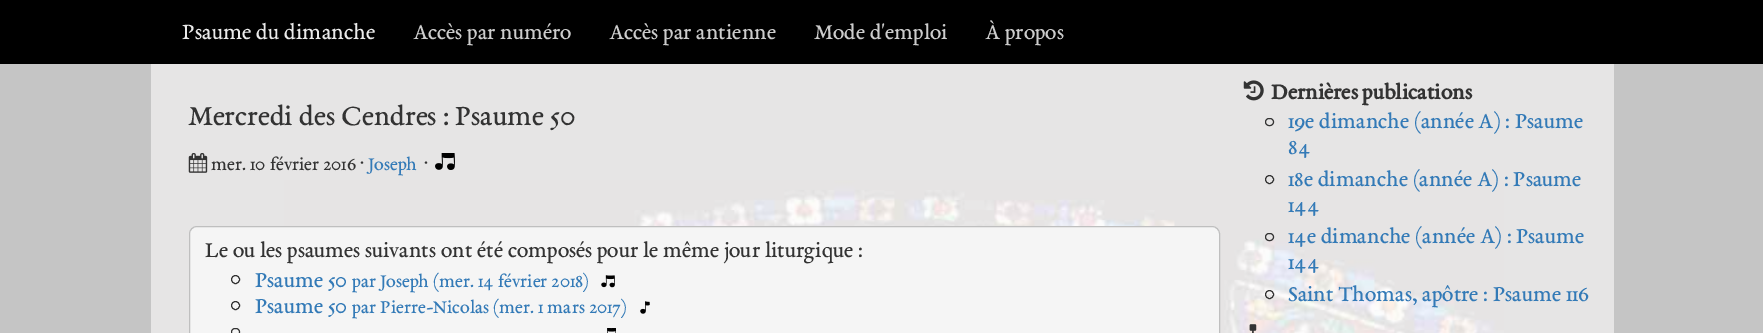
%!PS
<< /PageSize [1763 333] >> setpagedevice
/rgb { 3 { 255 div 3 1 roll } repeat setrgbcolor } def
/font { [ exch dup neg 0 0 3 -1 roll 0 0 ] selectfont } def
/text { moveto show } def
/circle { newpath 0 360 arc closepath } def
/roundrect { 5 dict begin { /r /h /w /y /x } { exch def } forall
  x r add y moveto x w add y 2 copy h add r arct x w add y h add x 1 index r arct
  x y h add x y r arct x y 2 copy exch w add exch r arct closepath end } def
/picture { 5 dict begin { /h /w /y /x /name } { exch def } forall
  gsave x y translate w h scale
  w h 8 [w 0 0 h 0 0] name (r) file false 3 colorimage grestore end } def
0 333 translate 1 -1 scale
4 setmiterlimit
197 197 197 rgb
0 0 1763 333 rectfill
230 229 229 rgb
151 64 1463 269 rectfill
(img_01.rgb) 284 180 1220 153 picture
0 0 0 rgb
0 0 1763 64 rectfill
(img_02.rgb) 188 153 20 20 picture
(img_03.rgb) 435 153 20 17 picture
245 245 245 rgb
189.5 226.5 1030 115 7.5 roundrect gsave fill grestore
191 191 191 rgb
stroke
51 51 51 rgb
235.5 279.5 4 circle stroke
(img_04.rgb) 601 275 14 13 picture
235.5 305.5 4 circle stroke
(img_05.rgb) 640 301 10 13 picture
231.5 328.5 8 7 3.5 roundrect stroke
(img_06.rgb) 607 328 9 5 picture
(img_07.rgb) 1243 80 21 21 picture
1265.5 118.5 8 7 3.5 roundrect stroke
1269.5 179.5 4 circle stroke
1265.5 233.5 8 7 3.5 roundrect stroke
1269.5 294.5 4 circle stroke
(img_08.rgb) 1249 324 8 9 picture
/EBGaramond-Regular 23.75 font
234 234 234 rgb
(Psaume du dimanche) 182 39 text
/EBGaramond-Regular 23.3 font
204 204 204 rgb
(Accès par numéro) 413 39 text
(Accès par antienne) 609 39 text
(Mode d'emploi) 814 39 text
(À propos) 985 39 text
/EBGaramond-Regular 30.3 font
51 51 51 rgb
(Mercredi des Cendres : Psaume 50) 188 125 text
/EBGaramond-Regular 19.8 font
(mer. 10 février 2016 ·) 211 170 text
51 122 183 rgb
(Joseph) 368 170 text
51 51 51 rgb
(·) 424 170 text
/EBGaramond-Regular 23.3 font
(Le ou les psaumes suivants ont été composés pour le même jour liturgique :) 205 257 text
51 122 183 rgb
(Psaume 50) 255 287 text
/EBGaramond-Regular 19.8 font
(par Joseph \(mer. 14 février 2018\)) 352 287 text
/EBGaramond-Regular 23.3 font
(Psaume 50) 255 313 text
/EBGaramond-Regular 19.8 font
(par Pierre-Nicolas \(mer. 1 mars 2017\)) 352 313 text
/EBGaramond-Bold 23.3 font
51 51 51 rgb
(Dernières publications) 1271 99 text
/EBGaramond-Regular 23.3 font
51 122 183 rgb
(19e dimanche \(année A\) : Psaume) 1288 128 text
(84) 1288 154 text
(18e dimanche \(année A\) : Psaume) 1288 186 text
(144) 1288 212 text
(14e dimanche \(année A\) : Psaume) 1288 243 text
(144) 1288 269 text
(Saint Thomas, apôtre : Psaume 116) 1288 301 text
showpage
